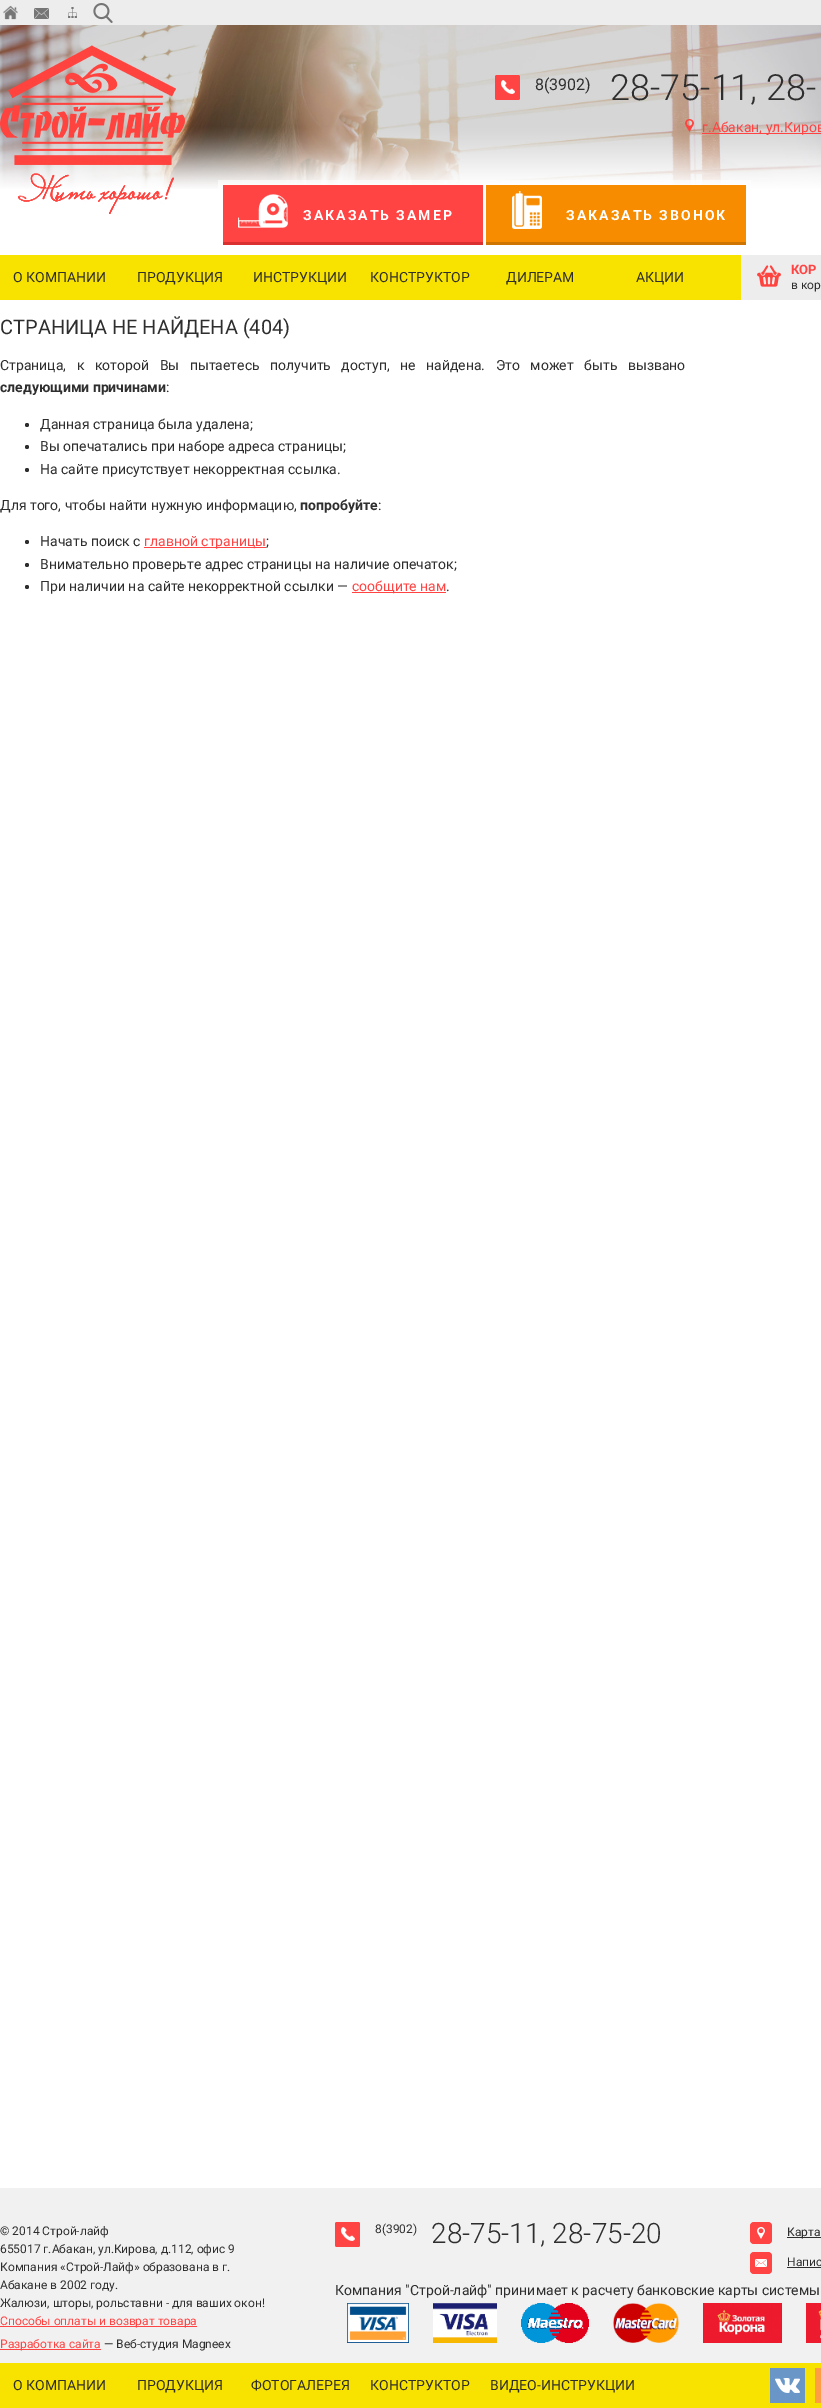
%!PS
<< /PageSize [821 2408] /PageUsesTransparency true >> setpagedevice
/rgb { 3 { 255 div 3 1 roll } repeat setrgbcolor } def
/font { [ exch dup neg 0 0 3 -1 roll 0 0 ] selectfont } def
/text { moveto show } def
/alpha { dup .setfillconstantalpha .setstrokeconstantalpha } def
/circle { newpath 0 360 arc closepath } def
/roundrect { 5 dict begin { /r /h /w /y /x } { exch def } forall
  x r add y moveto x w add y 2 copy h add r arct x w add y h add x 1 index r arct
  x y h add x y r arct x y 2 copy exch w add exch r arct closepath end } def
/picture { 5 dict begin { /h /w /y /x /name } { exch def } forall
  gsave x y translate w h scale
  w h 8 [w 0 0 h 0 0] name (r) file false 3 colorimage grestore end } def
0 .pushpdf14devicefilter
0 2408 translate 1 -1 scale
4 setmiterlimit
255 255 255 rgb
0 0 821 2408 rectfill
(img_01.rgb) 0 25 821 164 picture
237 237 237 rgb
0 0 821 25 rectfill
(img_02.rgb) 3 5 15 15 picture
(img_03.rgb) 34 8 15 11 picture
(img_04.rgb) 68 7 9 11 picture
(img_05.rgb) 93 3 20 20 picture
(img_06.rgb) 0 45 185 169 picture
255 68 67 rgb
495 75 25 25 2 roundrect fill
(img_07.rgb) 501 80 14 14 picture
(img_08.rgb) 685 119 9 13 picture
702 133 119 1 rectfill
0.6 alpha
255 255 255 rgb
218 180 533 9 rectfill
1 alpha
255 68 67 rgb
223 185 260 57 rectfill
218 49 48 rgb
223 242 260 3 rectfill
(img_09.rgb) 238 194 50 34 picture
248 140 0 rgb
486 185 260 57 rectfill
206 116 0 rgb
486 242 260 3 rectfill
(img_10.rgb) 512 191 30 38 picture
248 227 0 rgb
0 255 741 45 rectfill
237 237 237 rgb
741 255 80 45 rectfill
(img_11.rgb) 757 265 24 22 picture
46 46 46 rgb
27 425 2 circle fill
27 447 2 circle fill
27 470 2 circle fill
27 542 2 circle fill
255 68 67 rgb
144 547 122 1 rectfill
46 46 46 rgb
27 565 2 circle fill
27 587 2 circle fill
255 68 67 rgb
352 592 94 1 rectfill
241 241 241 rgb
0 2188 821 175 rectfill
255 68 67 rgb
0 2326 197 1 rectfill
0 2349 101 1 rectfill
335 2222 25 25 2 roundrect fill
(img_07.rgb) 341 2227 14 14 picture
750 2222 22 22 4 roundrect fill
(img_12.rgb) 757 2227 8 12 picture
46 46 46 rgb
787 2237 34 1 rectfill
255 68 67 rgb
750 2252 22 22 4 roundrect fill
(img_13.rgb) 755 2259 12 8 picture
46 46 46 rgb
787 2267 34 1 rectfill
(img_14.rgb) 347 2303 62 40 picture
(img_15.rgb) 433 2303 64 40 picture
(img_16.rgb) 521 2303 68 40 picture
(img_17.rgb) 613 2303 66 40 picture
(img_18.rgb) 703 2303 79 40 picture
(img_19.rgb) 806 2303 15 40 picture
248 227 0 rgb
0 2363 821 45 rectfill
(img_20.rgb) 770 2368 35 35 picture
255 156 68 rgb
815 2368 6 35 rectfill
/Roboto-Regular 16 font
46 46 46 rgb
(8\(3902\)) 535 90 text
/Roboto-Light 36 font
(28-75-11, 28-) 610 100 text
/Roboto-Regular 14 font
255 68 67 rgb
(г.Абакан, ул.Киров) 702 132 text
/Roboto-Bold 14 font
255 255 255 rgb
303 220 moveto 2 0 (ЗАКАЗАТЬ ЗАМЕР) ashow
566 220 moveto 2 0 (ЗАКАЗАТЬ ЗВОНОК) ashow
/Roboto-Regular 14 font
46 46 46 rgb
(О КОМПАНИИ) 13 282 text
(ПРОДУКЦИЯ) 137 282 text
(ИНСТРУКЦИИ) 253 282 text
(КОНСТРУКТОР) 370 282 text
(ДИЛЕРАМ) 506 282 text
(АКЦИИ) 636 282 text
/Roboto-Bold 13 font
255 68 67 rgb
(КОР) 791 274 text
/Roboto-Regular 12 font
46 46 46 rgb
(в кор) 791 289 text
/Roboto-Regular 20 font
(СТРАНИЦА НЕ НАЙДЕНА \(404\)) 0 334 text
/Roboto-Regular 14 font
0 370 moveto 7.1 0 32 (Страница, к которой Вы пытаетесь получить доступ, не найдена. Это может быть вызвано) widthshow
/Roboto-Bold 14 font
(следующими причинами) 0 392 text
/Roboto-Regular 14 font
(:) 166 392 text
(Данная страница была удалена;) 40 429 text
(Вы опечатались при наборе адреса страницы;) 40 451 text
(На сайте присутствует некорректная ссылка.) 40 474 text
(Для того, чтобы найти нужную информацию,) 0 510 text
/Roboto-Bold 14 font
(попробуйте) 300 510 text
/Roboto-Regular 14 font
(:) 378 510 text
(Начать поиск с) 40 546 text
255 68 67 rgb
(главной страницы) 144 546 text
46 46 46 rgb
(;) 266 546 text
(Внимательно проверьте адрес страницы на наличие опечаток;) 40 569 text
(При наличии на сайте некорректной ссылки —) 40 591 text
255 68 67 rgb
(сообщите нам) 352 591 text
46 46 46 rgb
(.) 446 591 text
/Roboto-Regular 12 font
(© 2014 Строй-лайф) 0 2235 text
(655017 г.Абакан, ул.Кирова, д.112, офис 9) 0 2253 text
(Компания «Строй-Лайф» образована в г.) 0 2271 text
(Абакане в 2002 году.) 0 2289 text
(Жалюзи, шторы, рольставни - для ваших окон!) 0 2307 text
255 68 67 rgb
(Способы оплаты и возврат товара) 0 2325 text
(Разработка сайта) 0 2348 text
46 46 46 rgb
(— Веб-студия Magneex) 104 2348 text
(8\(3902\)) 375 2233 text
/Roboto-Light 28 font
(28-75-11, 28-75-20) 431 2243 text
/Roboto-Regular 12 font
(Карта) 787 2236 text
(Напис) 787 2266 text
/Roboto-Regular 14 font
(Компания "Строй-лайф" принимает к расчету банковские карты системы) 335 2295 text
(О КОМПАНИИ) 13 2390 text
(ПРОДУКЦИЯ) 137 2390 text
(ФОТОГАЛЕРЕЯ) 251 2390 text
(КОНСТРУКТОР) 370 2390 text
(ВИДЕО-ИНСТРУКЦИИ) 490 2390 text
.poppdf14devicefilter showpage
